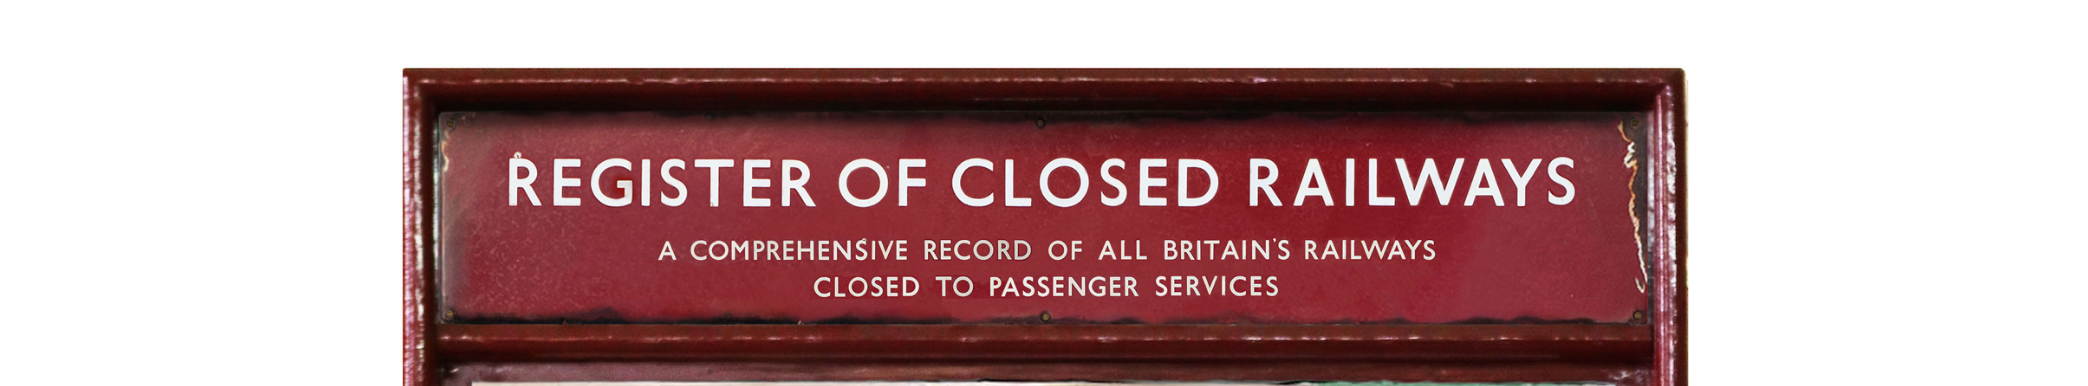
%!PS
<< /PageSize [2088 386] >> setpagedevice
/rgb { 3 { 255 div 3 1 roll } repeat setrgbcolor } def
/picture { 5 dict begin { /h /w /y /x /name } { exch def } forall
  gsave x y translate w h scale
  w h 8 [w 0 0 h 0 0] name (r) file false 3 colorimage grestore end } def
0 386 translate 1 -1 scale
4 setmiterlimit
255 255 255 rgb
0 0 2088 386 rectfill
(img_01.rgb) 400 64 1289 298 picture
(img_02.rgb) 394 362 1300 24 picture
showpage
